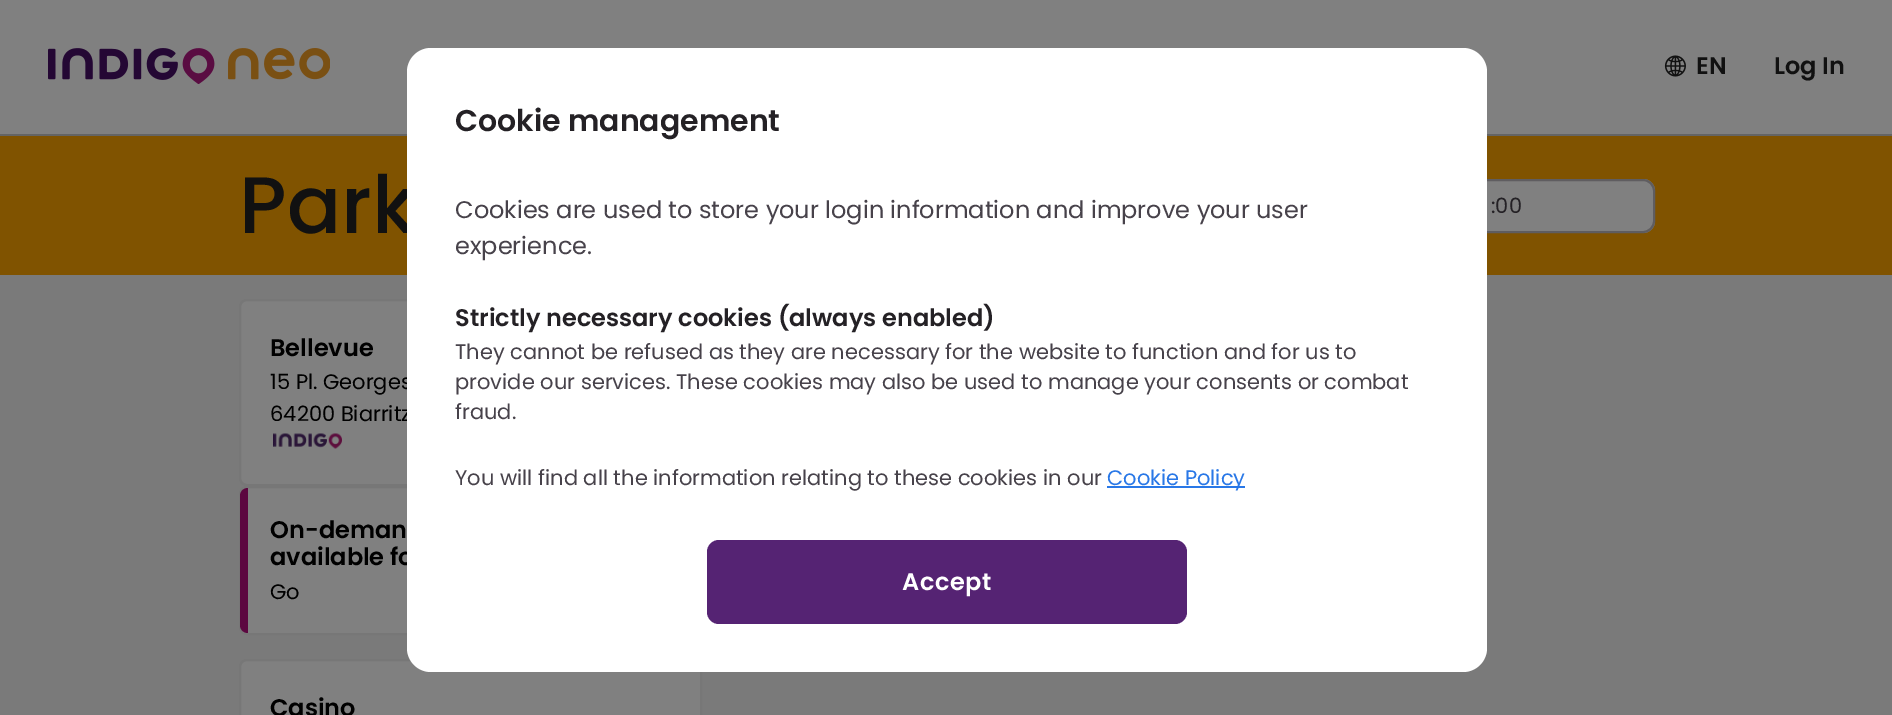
%!PS
<< /PageSize [1892 715] >> setpagedevice
/rgb { 3 { 255 div 3 1 roll } repeat setrgbcolor } def
/font { [ exch dup neg 0 0 3 -1 roll 0 0 ] selectfont } def
/text { moveto show } def
/roundrect { 5 dict begin { /r /h /w /y /x } { exch def } forall
  x r add y moveto x w add y 2 copy h add r arct x w add y h add x 1 index r arct
  x y h add x y r arct x y 2 copy exch w add exch r arct closepath end } def
/picture { 5 dict begin { /h /w /y /x /name } { exch def } forall
  gsave x y translate w h scale
  w h 8 [w 0 0 h 0 0] name (r) file false 3 colorimage grestore end } def
0 715 translate 1 -1 scale
4 setmiterlimit
122 122 122 rgb
0 0 1892 715 rectfill
100 100 100 rgb
0 134 1892 2 rectfill
128 128 128 rgb
0 0 1892 134 rectfill
(img_01.rgb) 48 48 282 36 picture
(img_02.rgb) 1664 55 22 22 picture
128 83 0 rgb
0 136 1892 139 rectfill
128 128 128 rgb
1319 179 336 54 12 roundrect fill
95 93 96 rgb
2 setlinewidth
1320 180 334 52 11 roundrect stroke
128 128 128 rgb
240 300 461 185 7 roundrect gsave fill grestore
119 119 119 rgb
stroke
(img_03.rgb) 273 433 69 16 picture
128 128 128 rgb
240 487 461 147 7 roundrect gsave fill grestore
119 119 119 rgb
stroke
92 7 64 rgb
248 488 moveto 0 145 rlineto -4.5 0 -8 -3.5 -8 -8 rcurveto 0 -129 rlineto 0 -4.5 3.5 -8 8 -8 rcurveto closepath fill
128 128 128 rgb
240 660 461 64 7 roundrect gsave fill grestore
119 119 119 rgb
stroke
/Poppins-SemiBold 24 font
17 17 17 rgb
(EN) 1696 74 text
(Log In) 1774 74 text
/Poppins-Medium 80 font
(Park) 239 233 text
/Poppins-Regular 21 font
36 33 37 rgb
(:00) 1491 213 text
/Poppins-SemiBold 24 font
0 0 0 rgb
(Bellevue) 270 356 text
/Poppins-Regular 21 font
(15 Pl. Georges) 270 389 text
(64200 Biarritz) 270 421 text
/Poppins-SemiBold 24 font
(On-deman) 270 538 text
(available fo) 270 565 text
/Poppins-Regular 21 font
(Go) 270 599 text
/Poppins-SemiBold 24 font
(Casino) 270 716 text
255 255 255 rgb
407 48 1080 624 24 roundrect fill
/Poppins-SemiBold 30 font
36 33 37 rgb
(Cookie management) 455 131 text
/Poppins-Regular 24 font
71 66 74 rgb
(Cookies are used to store your login information and improve your user) 455 218 text
(experience.) 455 254 text
/Poppins-SemiBold 24 font
36 33 37 rgb
(Strictly necessary cookies \(always enabled\)) 455 326 text
/Poppins-Regular 21 font
71 66 74 rgb
(They cannot be refused as they are necessary for the website to function and for us to) 455 359 text
(provide our services. These cookies may also be used to manage your consents or combat) 455 389 text
(fraud.) 455 419 text
(You will find all the information relating to these cookies in our) 455 485 text
41 120 231 rgb
1107 486 138 2 rectfill
(Cookie Policy) 1107 485 text
85 35 115 rgb
707 540 480 84 12 roundrect fill
/Poppins-SemiBold 24 font
255 255 255 rgb
902 590 moveto 0.5 0 (Accept) ashow
showpage
